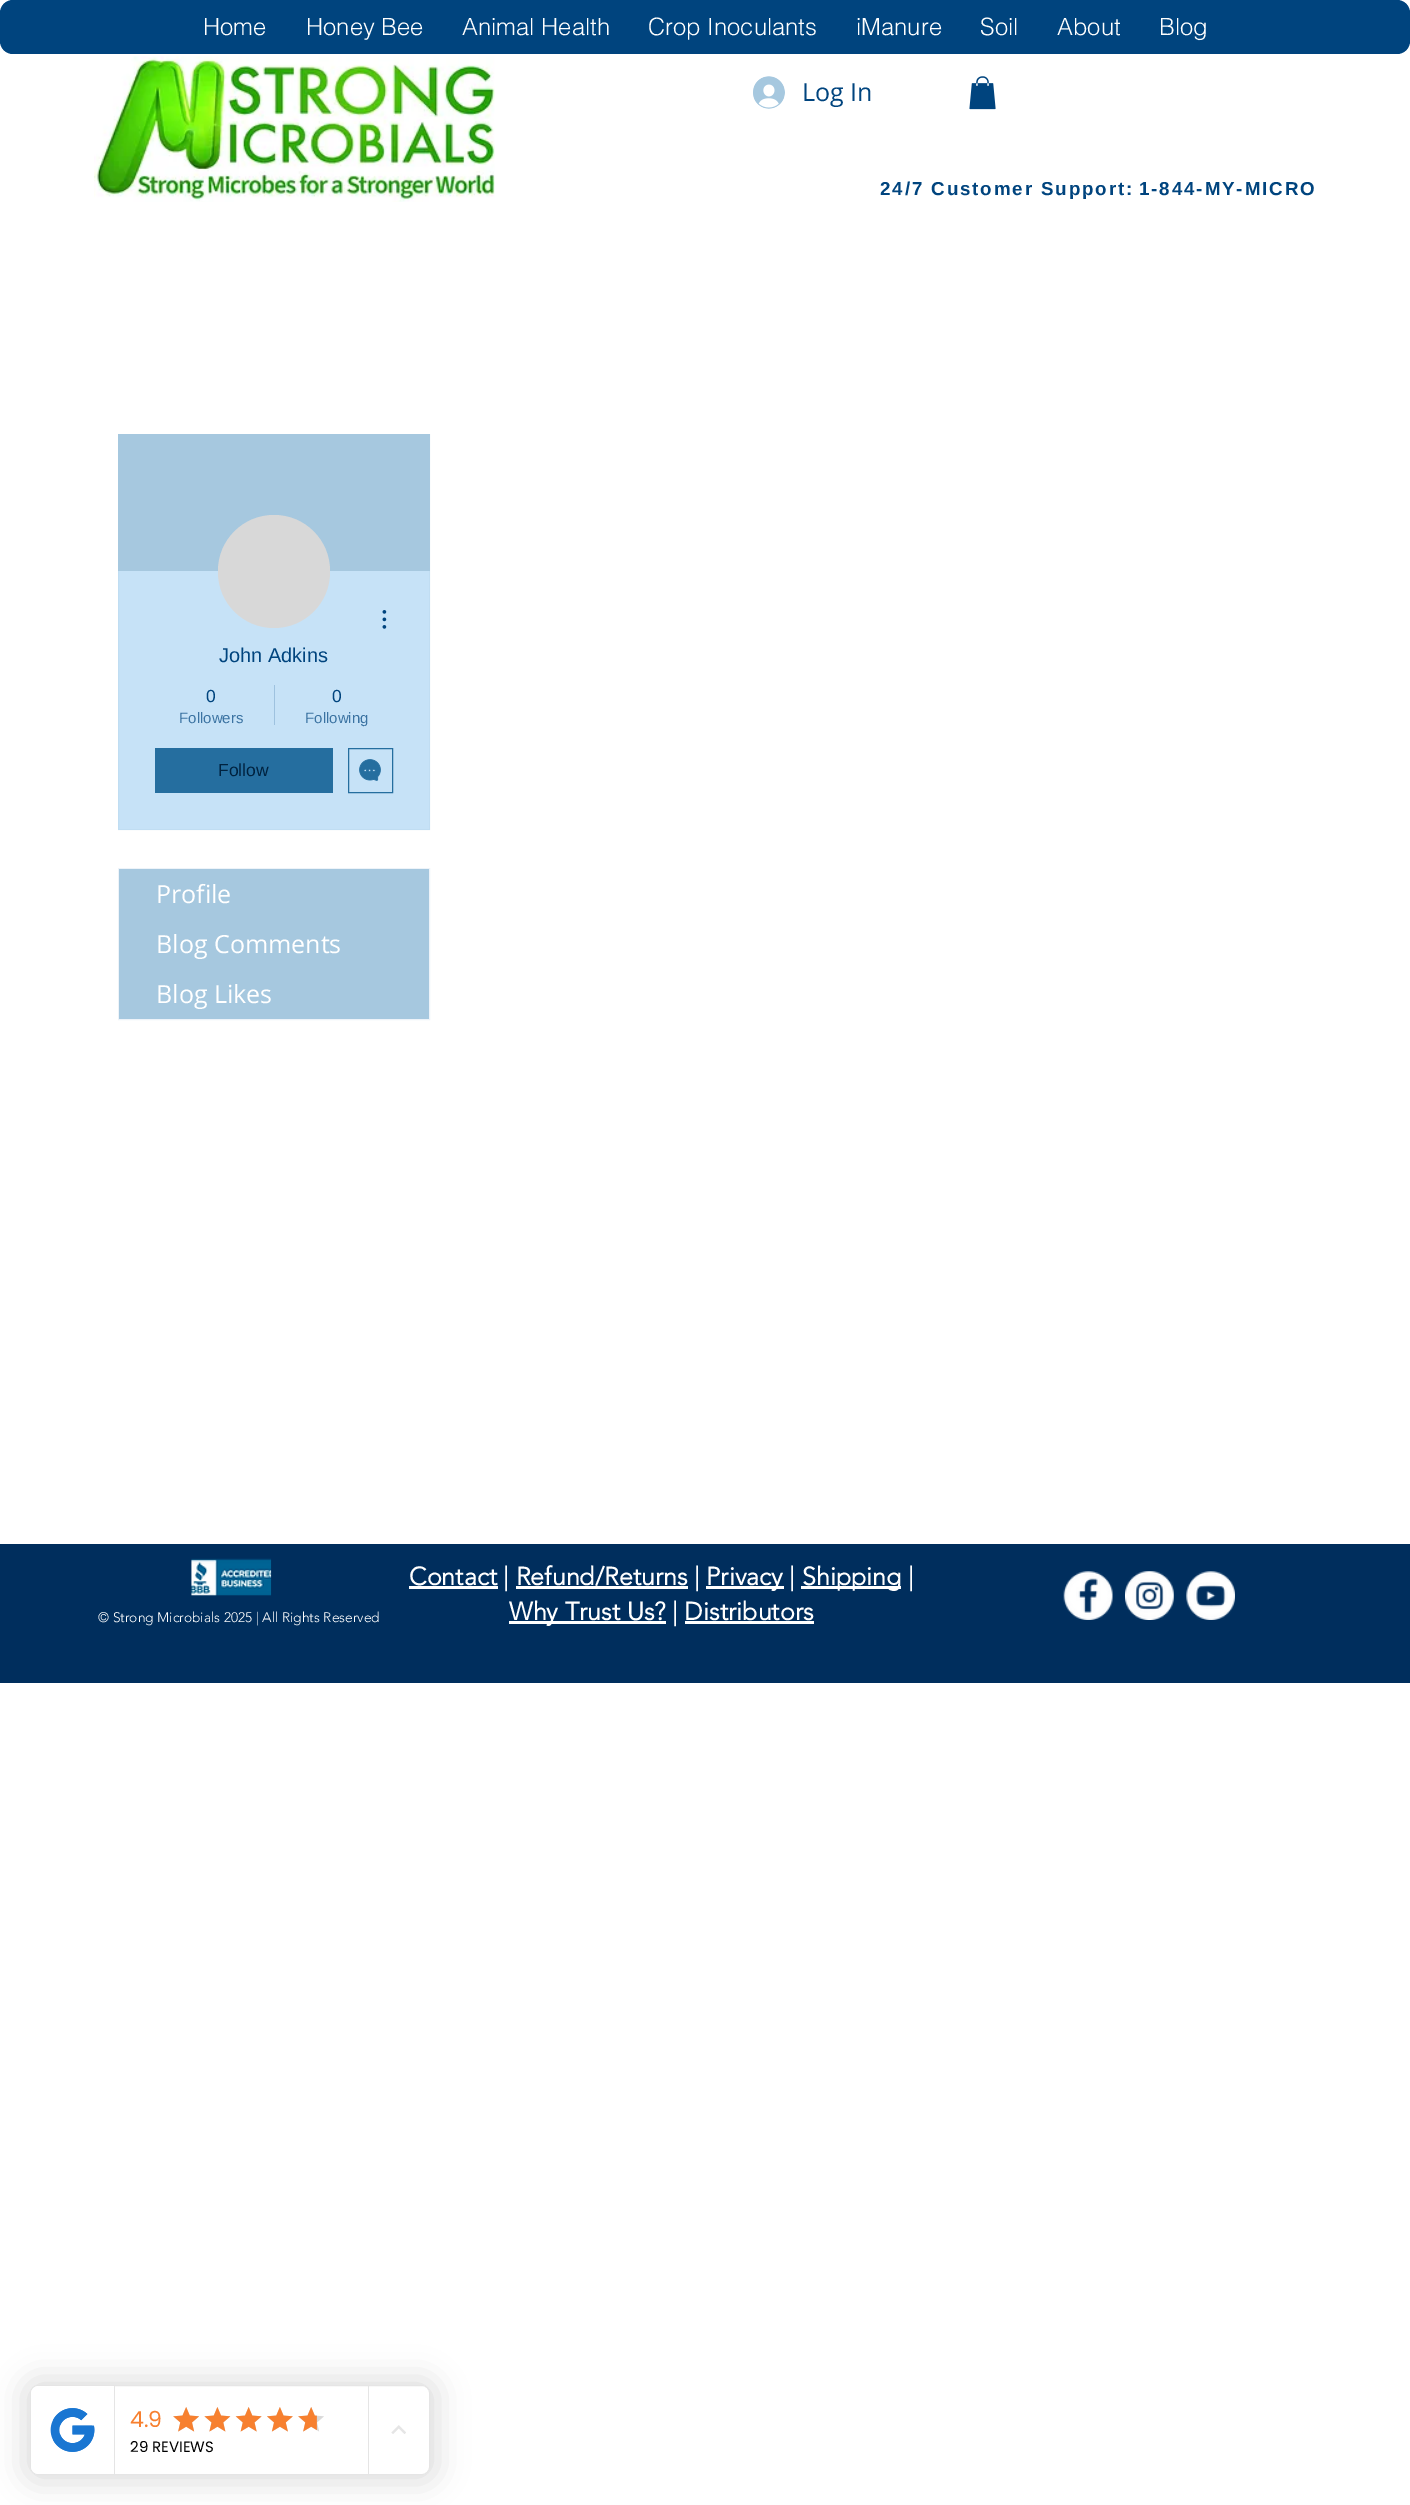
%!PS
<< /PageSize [1410 2505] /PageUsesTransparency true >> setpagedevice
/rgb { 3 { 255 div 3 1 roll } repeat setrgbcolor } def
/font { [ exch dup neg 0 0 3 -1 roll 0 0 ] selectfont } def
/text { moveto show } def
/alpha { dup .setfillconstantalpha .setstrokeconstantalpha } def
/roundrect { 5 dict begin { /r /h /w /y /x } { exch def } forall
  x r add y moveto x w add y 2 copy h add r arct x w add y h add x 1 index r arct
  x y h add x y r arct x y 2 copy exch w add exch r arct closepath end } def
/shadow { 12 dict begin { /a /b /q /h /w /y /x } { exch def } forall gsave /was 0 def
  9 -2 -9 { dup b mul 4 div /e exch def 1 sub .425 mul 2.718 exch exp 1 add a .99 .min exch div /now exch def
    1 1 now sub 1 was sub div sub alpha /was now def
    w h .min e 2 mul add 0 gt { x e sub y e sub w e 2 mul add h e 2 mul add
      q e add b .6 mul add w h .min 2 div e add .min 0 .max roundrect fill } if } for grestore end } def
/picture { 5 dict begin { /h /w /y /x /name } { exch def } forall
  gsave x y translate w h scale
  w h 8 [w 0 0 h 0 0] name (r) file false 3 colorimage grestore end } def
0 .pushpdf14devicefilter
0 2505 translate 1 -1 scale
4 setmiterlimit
255 255 255 rgb
0 0 1410 2505 rectfill
0 68 126 rgb
0 0 1410 54 13 roundrect fill
(img_01.rgb) 94 56 401 146 picture
(img_02.rgb) 753 76 32 33 picture
(img_03.rgb) 969 76 27 34 picture
198 226 247 rgb
118 571 312 259 rectfill
166 200 223 rgb
118 434 312 137 rectfill
0.2 alpha
118.5 434.5 311 395 rectstroke
1 alpha
216 216 216 rgb
218 515 112 113 56 roundrect fill
(img_04.rgb) 382 610 5 19 picture
158 194 223 rgb
274 685 1 40 rectfill
37 110 159 rgb
155 748 178 45 rectfill
348.5 748.5 44 44 rectstroke
(img_05.rgb) 359 759 22 22 picture
237 243 249 rgb
118.5 868.5 311 151 rectstroke
166 200 223 rgb
119 869 310 150 rectfill
0 46 93 rgb
0 1544 1410 139 rectfill
(img_06.rgb) 191 1558 81 38 picture
255 255 255 rgb
409 1586 89 3 rectfill
516 1586 172 3 rectfill
706 1586 78 3 rectfill
801 1586 100 3 rectfill
509 1621 157 3 rectfill
685 1621 129 3 rectfill
(img_07.rgb) 1063 1571 50 49 picture
(img_08.rgb) 1125 1571 49 49 picture
(img_09.rgb) 1186 1571 49 49 picture
0 0 0 rgb
23 2378 415 105 15 15 0.12 shadow
255 255 255 rgb
30.5 2385.5 399 89 7.5 roundrect gsave fill grestore
229 229 229 rgb
stroke
255 255 255 rgb
39 2386 moveto 76 0 rlineto 0 88 rlineto -76 0 rlineto -4.5 0 -8 -3.5 -8 -8 rcurveto 0 -72 rlineto 0 -4.5 3.5 -8 8 -8 rcurveto closepath fill
229 229 229 rgb
114 2386 1 88 rectfill
(img_10.rgb) 50 2408 45 44 picture
368 2386 1 88 rectfill
(img_11.rgb) 173 2407 26 25 picture
(img_12.rgb) 173 2407 26 25 picture
(img_13.rgb) 204 2407 26 25 picture
(img_14.rgb) 204 2407 27 25 picture
(img_16.rgb) 236 2407 26 25 picture
(img_15.rgb) 235 2407 27 25 picture
(img_17.rgb) 267 2407 26 25 picture
(img_18.rgb) 267 2407 26 25 picture
(img_11.rgb) 298 2407 26 25 picture
(img_19.rgb) 298 2407 19 25 picture
(img_20.rgb) 391 2425 15 9 picture
/helvetica-Light 23.75 font
255 255 255 rgb
(Home) 203 35 text
(Honey Bee) 306 35 text
(Animal Health) 462 35 text
(Crop Inoculants) 648 35 text
(iManure) 856 35 text
(Soil) 980 35 text
(About) 1057 35 text
(Blog) 1159 35 text
/OpenSans-Regular 25 font
0 68 126 rgb
(Log In) 802 101 text
/LiberationSans-Bold 18.75 font
880 195 moveto 1.9 0 (24/7 Customer Support:) ashow
1139 195 moveto 1.9 0 (1-844-MY-MICRO) ashow
/LiberationSans-Regular 20 font
(John Adkins) 219 662 text
/LiberationSans-Regular 17.5 font
(0) 206 702 text
/LiberationSans-Regular 15 font
59 115 162 rgb
(Followers) 179 723 text
/LiberationSans-Regular 17.5 font
0 68 126 rgb
(0) 332 702 text
/LiberationSans-Regular 15 font
59 115 162 rgb
(Following) 305 723 text
/LiberationSans-Regular 17.5 font
0 34 63 rgb
(Follow) 218 776 text
/OpenSans-Regular 25 font
255 255 255 rgb
(Profile) 156 903 text
(Blog Comments) 156 953 text
(Blog Likes) 156 1003 text
/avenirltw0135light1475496-Bold 25 font
(Contact | Refund/Returns |) 409 1585 text
(Privacy |) 706 1585 text
(Shipping |) 802 1585 text
(Why Trust Us? | Distributors) 509 1620 text
/avenirltw0135light1475496-Light 13.75 font
(© Strong Microbials 2025 | All Rights Reserved) 98 1622 text
/Poppins-Regular 22 font
247 128 47 rgb
(4.9) 130 2427 text
/Poppins-Regular 15 font
0 0 0 rgb
(29 REVIEWS) 130 2452 text
.poppdf14devicefilter showpage
